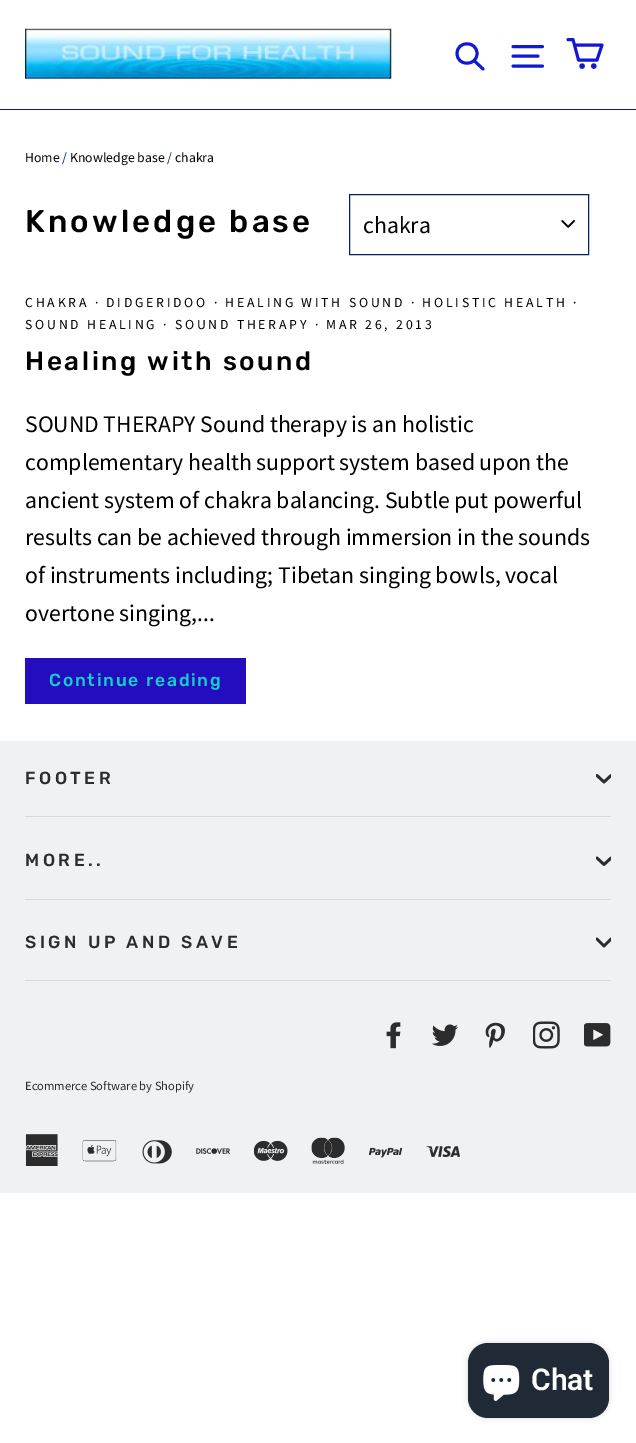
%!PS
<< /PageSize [636 1443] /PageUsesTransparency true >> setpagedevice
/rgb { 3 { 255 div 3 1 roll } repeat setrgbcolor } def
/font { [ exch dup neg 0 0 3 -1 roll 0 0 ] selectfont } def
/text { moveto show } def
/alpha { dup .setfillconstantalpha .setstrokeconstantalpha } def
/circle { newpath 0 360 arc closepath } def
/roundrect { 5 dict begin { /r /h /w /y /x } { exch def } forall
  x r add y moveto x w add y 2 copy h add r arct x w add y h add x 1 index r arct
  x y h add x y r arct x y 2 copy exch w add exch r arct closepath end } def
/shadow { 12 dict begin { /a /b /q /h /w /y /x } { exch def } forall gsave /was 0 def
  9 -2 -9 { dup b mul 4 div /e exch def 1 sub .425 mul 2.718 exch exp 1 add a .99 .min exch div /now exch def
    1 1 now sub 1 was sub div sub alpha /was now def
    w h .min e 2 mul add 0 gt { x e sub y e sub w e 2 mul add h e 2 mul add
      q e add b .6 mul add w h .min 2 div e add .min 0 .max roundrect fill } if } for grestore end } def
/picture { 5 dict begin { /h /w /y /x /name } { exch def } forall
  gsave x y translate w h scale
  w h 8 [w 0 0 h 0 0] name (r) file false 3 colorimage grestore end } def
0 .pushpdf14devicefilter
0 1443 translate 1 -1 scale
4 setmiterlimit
255 255 255 rgb
0 0 636 1443 rectfill
4 35 96 rgb
0 109 636 1 rectfill
(img_01.rgb) 25 28 367 51 picture
18 23 209 rgb
2.9 setlinewidth
1 setlinecap
1 setlinejoin
477 53.5 moveto 0 13 -20 13 -20 0 rcurveto 0 -13 20 -13 20 0 rcurveto closepath 483 69 moveto -9 -8.5 rlineto stroke
513 46.5 moveto 29.5 0 rlineto 513 56 moveto 25 0 rlineto 513 66 moveto 29.5 0 rlineto stroke
574.5 45 moveto 27.5 0 rlineto -5 15 rlineto -18.5 0 rlineto -5.5 -20.5 rlineto -5 0 rlineto stroke
0 setlinecap
0 setlinejoin
582.1 66.1 1.2 circle stroke
593.8 66.1 1.2 circle stroke
(img_02.rgb) 561 220 14 8 picture
4 35 96 rgb
1 setlinewidth
349.5 194.5 239 60 rectstroke
36 13 191 rgb
25 658 221 46 rectfill
240 241 243 rgb
0 741 636 452 rectfill
gsave
596 771 15 15 rectclip
44 44 44 rgb
2.7 setlinewidth
1 setlinecap
1 setlinejoin
597 775.5 moveto 7 6.5 rlineto 7 -6.5 rlineto stroke
grestore
216 217 219 rgb
25 816 586 1 rectfill
gsave
596 854 15 15 rectclip
44 44 44 rgb
2.7 setlinewidth
1 setlinecap
1 setlinejoin
597 858 moveto 7 6.5 rlineto 7 -6.5 rlineto stroke
grestore
25 899 586 1 rectfill
gsave
596 935 15 15 rectclip
44 44 44 rgb
2.7 setlinewidth
1 setlinecap
1 setlinejoin
597 939 moveto 7 7 rlineto 7 -7 rlineto stroke
grestore
25 980 586 1 rectfill
(img_03.rgb) 386 1022 15 27 picture
(img_04.rgb) 432 1024 26 22 picture
(img_05.rgb) 485 1022 20 27 picture
(img_06.rgb) 533 1021 27 28 picture
(img_07.rgb) 584 1023 27 24 picture
(img_08.rgb) 25 1134 33 32 picture
(img_09.rgb) 82 1140 35 22 picture
(img_10.rgb) 142 1140 30 24 picture
(img_11.rgb) 196 1148 34 6 picture
(img_12.rgb) 254 1140 34 21 picture
(img_13.rgb) 311 1137 34 27 picture
(img_14.rgb) 369 1147 34 11 picture
(img_15.rgb) 426 1146 34 11 picture
0 0 0 rgb
468 1343 141 75 20 3 0.15 shadow
32 42 54 rgb
468 1343 141 75 20 roundrect fill
(img_16.rgb) 483 1365 37 36 picture
/SourceSansPro-Regular 13.75 font
0 0 0 rgb
(Home) 25 162 text
4 35 96 rgb
(/) 62 162 text
0 0 0 rgb
(Knowledge base) 70 162 text
4 35 96 rgb
(/) 167 162 text
0 0 0 rgb
(chakra) 175 162 text
/Rubik-Light 31.25 font
25 232 moveto 3.1 0 (Knowledge base) ashow
/SourceSansPro-Regular 23.75 font
(chakra) 363 233 text
/SourceSansPro-Regular 13.75 font
25 307 moveto 2.75 0 (CHAKRA · DIDGERIDOO · HEALING WITH SOUND · HOLISTIC HEALTH ·) ashow
25 329 moveto 2.75 0 (SOUND HEALING · SOUND THERAPY · MAR 26, 2013) ashow
/Rubik-Light 26.25 font
25 370 moveto 2.6 0 (Healing with sound) ashow
/SourceSansPro-Regular 23.75 font
(SOUND THERAPY Sound therapy is an holistic) 25 432 text
(complementary health support system based upon the) 25 470 text
(ancient system of chakra balancing. Subtle put powerful) 25 508 text
(results can be achieved through immersion in the sounds) 25 545 text
(of instruments including; Tibetan singing bowls, vocal) 25 583 text
(overtone singing,...) 25 621 text
/Rubik-Light 17.5 font
18 209 201 rgb
49 686 moveto 1.75 0 (Continue reading) ashow
44 44 44 rgb
25 784 moveto 3.5 0 (FOOTER) ashow
25 866 moveto 3.5 0 (MORE..) ashow
25 948 moveto 3.5 0 (SIGN UP AND SAVE) ashow
/SourceSansPro-Regular 12.5 font
(Ecommerce Software by Shopify) 25 1090 text
/Roboto-SemiBold 30 font
255 255 255 rgb
(Chat) 531 1390 text
.poppdf14devicefilter showpage
